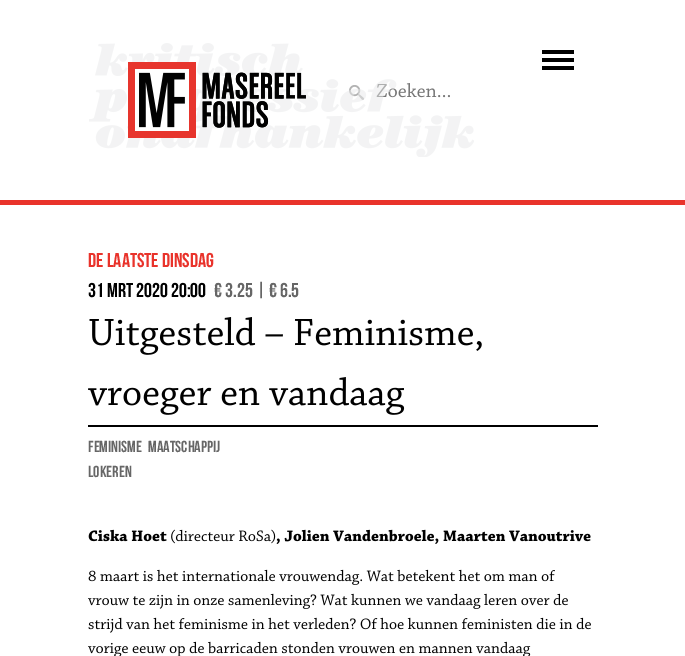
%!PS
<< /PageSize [685 656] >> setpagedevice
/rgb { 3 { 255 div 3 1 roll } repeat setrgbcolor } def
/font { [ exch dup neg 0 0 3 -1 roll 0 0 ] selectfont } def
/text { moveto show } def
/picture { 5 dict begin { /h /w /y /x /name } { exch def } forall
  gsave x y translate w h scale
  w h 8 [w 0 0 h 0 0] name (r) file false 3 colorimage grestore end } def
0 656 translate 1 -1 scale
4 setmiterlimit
255 255 255 rgb
0 0 685 656 rectfill
233 51 43 rgb
0 200 685 5 rectfill
(img_03.rgb) 349 85 15 15 picture
(img_04.rgb) 376 83 74 15 picture
(img_01.rgb) 89 43 385 114 picture
(img_02.rgb) 128 62 178 76 picture
0 0 0 rgb
542 50 32 4 rectfill
542 58 32 4 rectfill
542 66 32 4 rectfill
88 425 510 2 rectfill
(img_05.rgb) 89 317 393 38 picture
(img_06.rgb) 88 377 317 38 picture
(img_07.rgb) 88 529 79 13 picture
(img_08.rgb) 171 529 105 15 picture
(img_09.rgb) 276 529 315 15 picture
(img_10.rgb) 88 569 467 16 picture
(img_11.rgb) 88 593 480 16 picture
(img_12.rgb) 88 617 503 16 picture
(img_13.rgb) 88 641 443 15 picture
/BebasNeue-Regular 20 font
233 51 43 rgb
(de Laatste Dinsdag) 88 267 text
0 0 0 rgb
(31 mrt 2020 20:00) 88 297 text
102 102 102 rgb
(€ 3.25 | € 6.5) 214 297 text
/BebasNeue-Regular 16 font
(feminisme) 88 452 text
(maatschappij) 148 452 text
(Lokeren) 88 477 text
showpage
